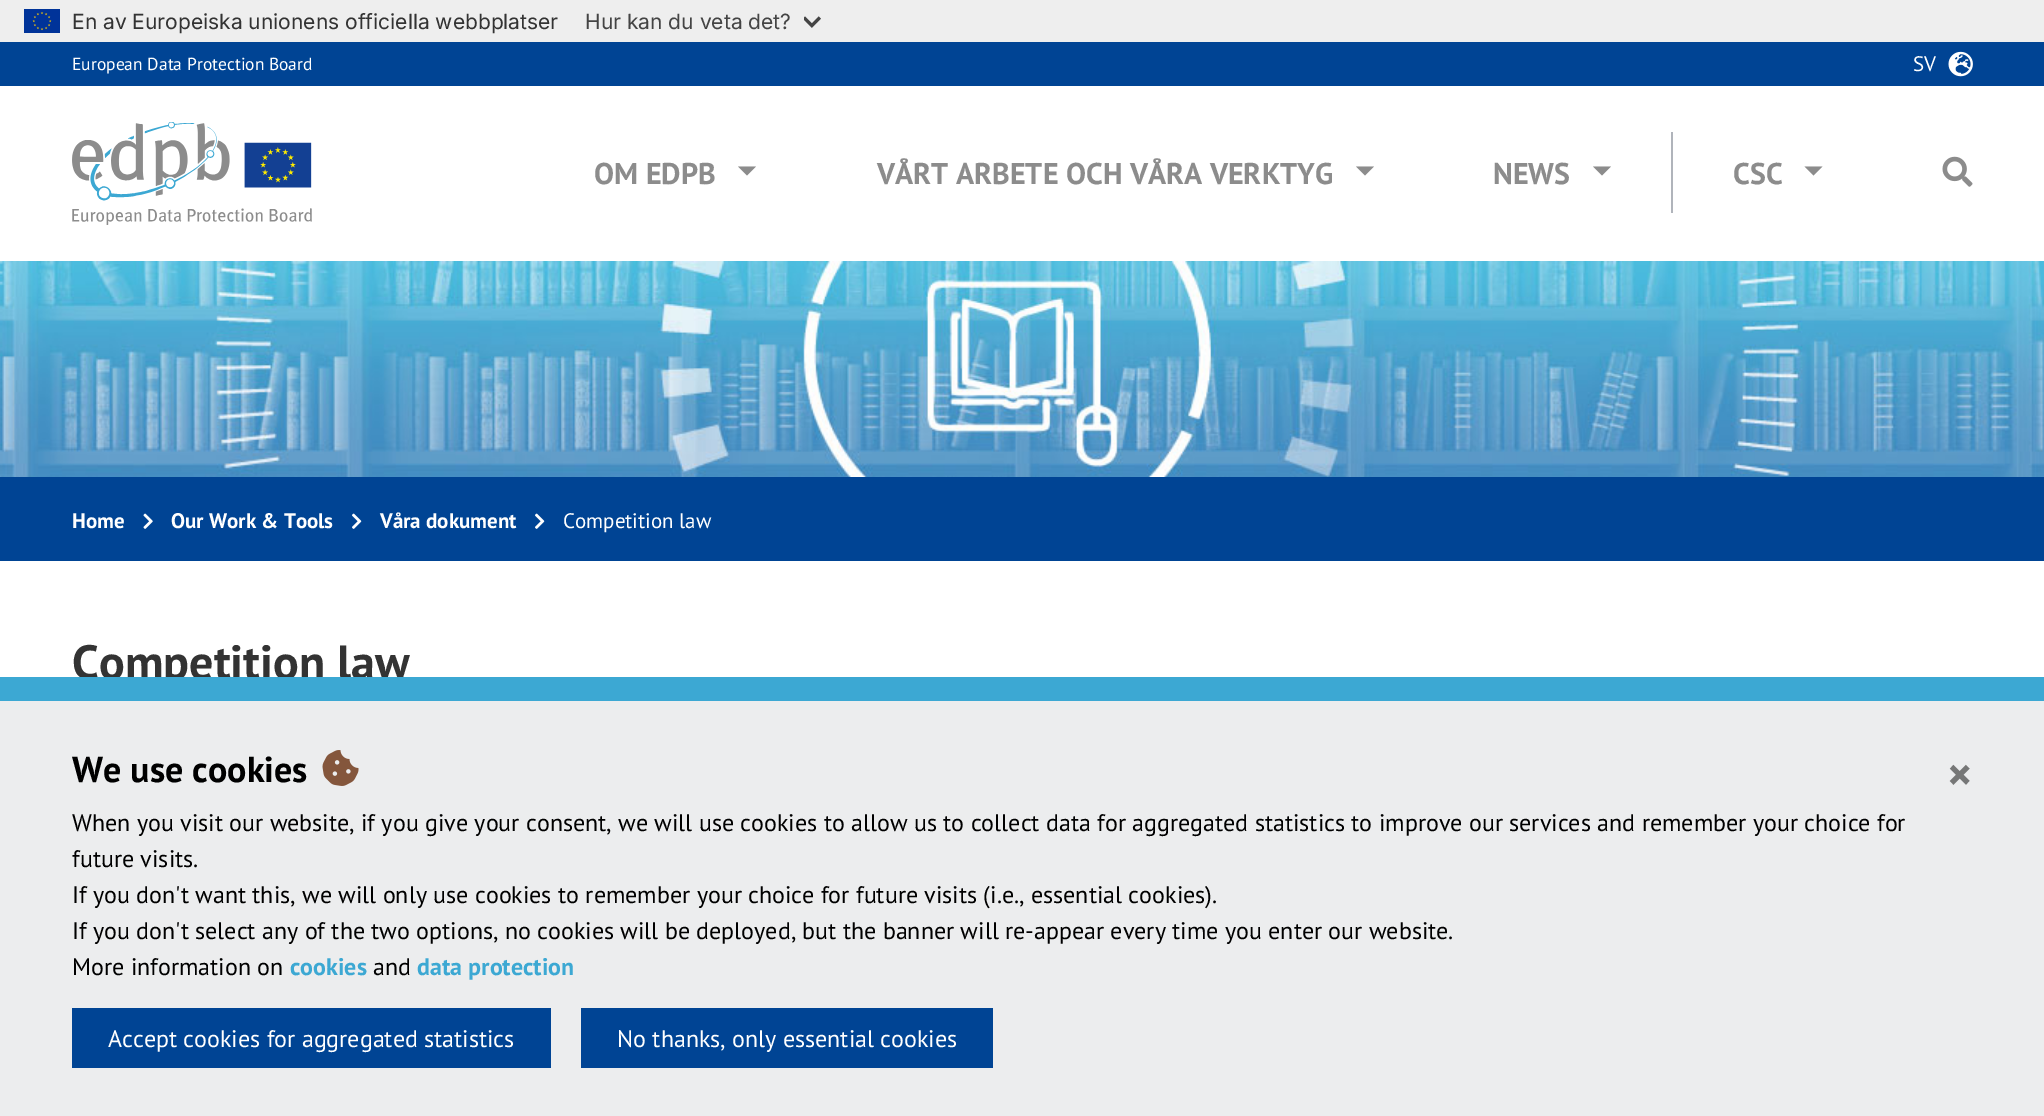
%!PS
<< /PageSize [2044 1116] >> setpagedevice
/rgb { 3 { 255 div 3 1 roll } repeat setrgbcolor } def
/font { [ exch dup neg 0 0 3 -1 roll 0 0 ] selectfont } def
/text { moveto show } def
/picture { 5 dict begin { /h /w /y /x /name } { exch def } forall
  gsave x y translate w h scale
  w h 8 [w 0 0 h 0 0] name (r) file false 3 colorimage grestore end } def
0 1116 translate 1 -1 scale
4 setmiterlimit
255 255 255 rgb
0 0 2044 1116 rectfill
238 238 238 rgb
0 0 2044 42 rectfill
(img_01.rgb) 24 9 36 24 picture
(img_02.rgb) 804 16 17 12 picture
0 68 148 rgb
0 42 2044 44 rectfill
(img_03.rgb) 1948 51 25 26 picture
(img_04.rgb) 72 122 240 103 picture
140 140 140 rgb
738 166.5 moveto 18 0 rlineto -9 9 rlineto closepath fill
1356 166.5 moveto 18 0 rlineto -9 9 rlineto closepath fill
1593 166.5 moveto 18 0 rlineto -9 9 rlineto closepath fill
176 180 187 rgb
1671 132 2 81 rectfill
140 140 140 rgb
1804.5 166.5 moveto 18 0 rlineto -9 9 rlineto closepath fill
(img_05.rgb) 1942 156 31 31 picture
(img_06.rgb) 0 261 2044 216 picture
0 68 148 rgb
0 477 2044 84 rectfill
(img_07.rgb) 143 513 10 16 picture
(img_08.rgb) 352 513 10 16 picture
(img_08.rgb) 535 513 10 16 picture
236 237 238 rgb
0 701 2044 415 rectfill
(img_09.rgb) 322 750 37 36 picture
0 68 148 rgb
72 1008 479 60 rectfill
581 1008 412 60 rectfill
/Inter-Regular 21 font
51 51 51 rgb
(En av Europeiska unionens officiella webbplatser) 72 29 text
68 68 68 rgb
(Hur kan du veta det?) 585 29 text
/PTSans-Regular 17.5 font
255 255 255 rgb
(European Data Protection Board) 72 70 text
/PTSans-Regular 21 font
(SV) 1913 71 text
/PTSans-Bold 30 font
140 140 140 rgb
(OM EDPB) 594 184 text
(VÅRT ARBETE OCH VÅRA VERKTYG) 877 184 text
(NEWS) 1493 184 text
(CSC) 1733 184 text
/PTSans-Bold 21 font
255 255 255 rgb
(Home) 72 528 text
(Our Work & Tools) 171 528 text
(Våra dokument) 380 528 text
/PTSans-Regular 21 font
(Competition law) 563 528 text
/PTSans-Bold 48 font
51 51 51 rgb
(Competition law) 72 679 text
60 168 211 rgb
0 677 2044 24 rectfill
/PTSans-Bold 36 font
0 0 0 rgb
(We use cookies) 72 782 text
/PTSans-Bold 48 font
118 119 119 rgb
(×) 1947 791 text
/PTSans-Regular 24 font
0 0 0 rgb
(When you visit our website, if you give your consent, we will use cookies to allow us to collect data for aggregated statistics to improve our services and remember your choice for) 72 831 text
(future visits.) 72 867 text
(If you don't want this, we will only use cookies to remember your choice for future visits \(i.e., essential cookies\).) 72 903 text
(If you don't select any of the two options, no cookies will be deployed, but the banner will re-appear every time you enter our website.) 72 939 text
(More information on) 72 975 text
/PTSans-Bold 24 font
60 168 211 rgb
(cookies) 290 975 text
/PTSans-Regular 24 font
0 0 0 rgb
(and) 373 975 text
/PTSans-Bold 24 font
60 168 211 rgb
(data protection) 417 975 text
/PTSans-Regular 24 font
255 255 255 rgb
(Accept cookies for aggregated statistics) 108 1047 text
(No thanks, only essential cookies) 617 1047 text
showpage
